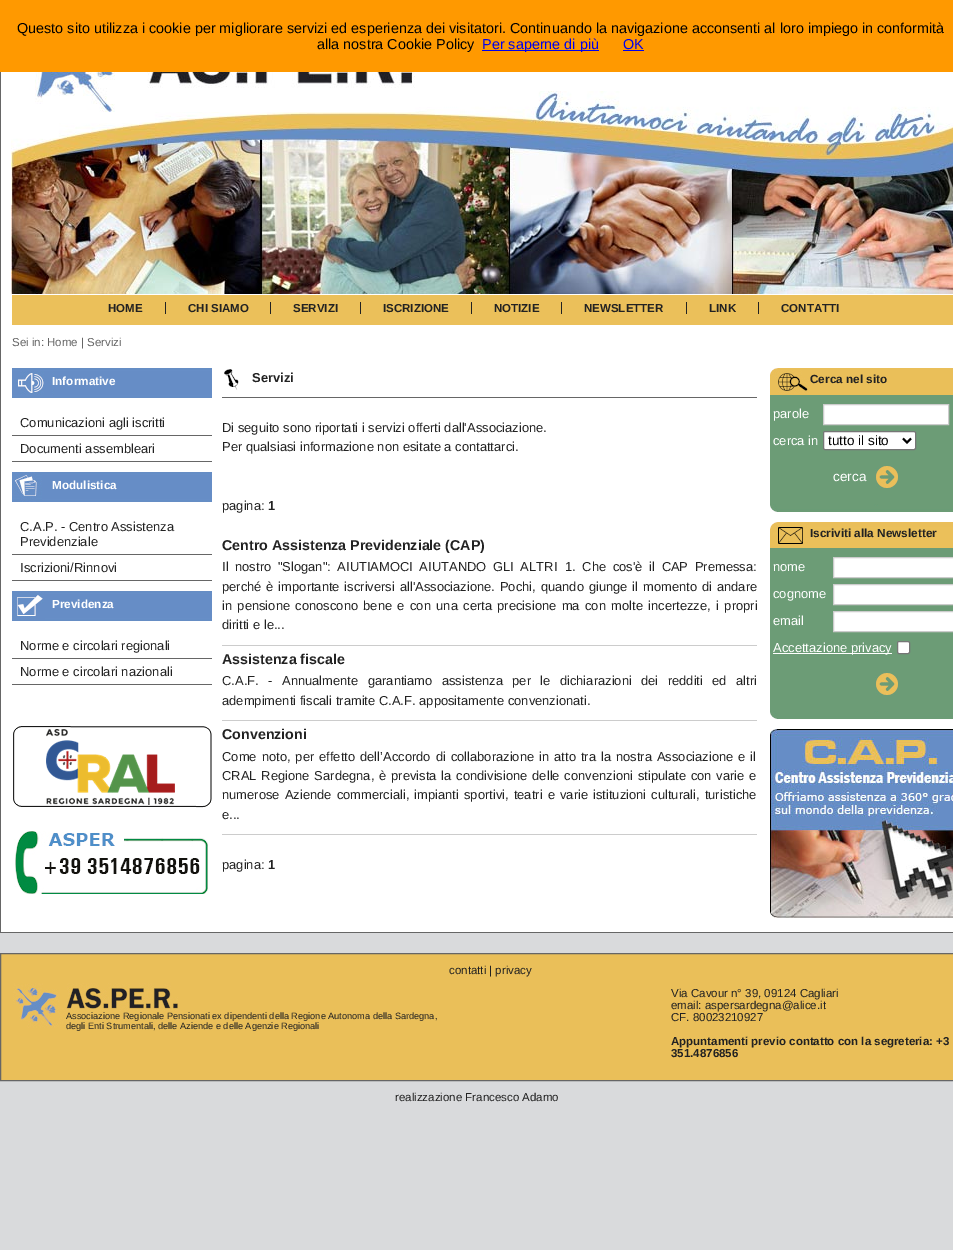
%!PS
<< /PageSize [953 1250] >> setpagedevice
/rgb { 3 { 255 div 3 1 roll } repeat setrgbcolor } def
/font { [ exch dup neg 0 0 3 -1 roll 0 0 ] selectfont } def
/text { moveto show } def
/roundrect { 5 dict begin { /r /h /w /y /x } { exch def } forall
  x r add y moveto x w add y 2 copy h add r arct x w add y h add x 1 index r arct
  x y h add x y r arct x y 2 copy exch w add exch r arct closepath end } def
/picture { 5 dict begin { /h /w /y /x /name } { exch def } forall
  gsave x y translate w h scale
  w h 8 [w 0 0 h 0 0] name (r) file false 3 colorimage grestore end } def
0 1250 translate 1 -1 scale
4 setmiterlimit
217 218 220 rgb
0 0 953 1250 rectfill
255 153 0 rgb
0 0 953 72 rectfill
0 0 238 rgb
482 50 117 1 rectfill
623 50 21 1 rectfill
102 102 102 rgb
0 932 953 1 rectfill
0 72 1 861 rectfill
255 255 255 rgb
1 72 952 860 rectfill
(img_02.rgb) 11 91 942 203 picture
(img_01.rgb) 11 72 404 40 picture
235 192 90 rgb
12 295 941 30 rectfill
34 34 34 rgb
165 302 1 12 rectfill
270 302 1 12 rectfill
360 302 1 12 rectfill
471 302 1 12 rectfill
561 302 1 12 rectfill
686 302 1 12 rectfill
758 302 1 12 rectfill
(img_03.rgb) 12 368 200 30 picture
102 102 102 rgb
12 435 200 1 rectfill
12 461 200 1 rectfill
(img_04.rgb) 12 472 200 30 picture
12 554 200 1 rectfill
12 580 200 1 rectfill
(img_05.rgb) 12 591 200 30 picture
12 658 200 1 rectfill
12 684 200 1 rectfill
(img_06.rgb) 13 726 199 82 picture
(img_07.rgb) 14 831 194 64 picture
(img_08.rgb) 224 369 15 21 picture
222 397 535 1 rectfill
204 204 204 rgb
222 645 535 1 rectfill
222 720 535 1 rectfill
222 834 535 1 rectfill
(img_09.rgb) 770 368 183 27 picture
108 156 118 rgb
770 395 183 109 rectfill
255 255 255 rgb
823.5 404.5 moveto 125 0 rlineto 0 20 rlineto -125 0 rlineto closepath gsave fill grestore
204 204 204 rgb
stroke
255 255 255 rgb
823.5 431.5 92 18 1.5 roundrect gsave fill grestore
118 118 118 rgb
stroke
0 0 0 rgb
2 setlinewidth
903 438.5 moveto 4 4 rlineto 4 -4 rlineto stroke
(img_10.rgb) 875 466 23 22 picture
(img_11.rgb) 770 504 183 8 picture
(img_12.rgb) 770 522 183 26 picture
108 156 118 rgb
770 548 183 163 rectfill
255 255 255 rgb
833.5 557.5 moveto 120 0 rlineto 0 20 rlineto -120 0 rlineto closepath gsave fill grestore
204 204 204 rgb
1 setlinewidth
stroke
255 255 255 rgb
833.5 584.5 moveto 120 0 rlineto 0 20 rlineto -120 0 rlineto closepath gsave fill grestore
204 204 204 rgb
stroke
255 255 255 rgb
833.5 611.5 moveto 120 0 rlineto 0 20 rlineto -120 0 rlineto closepath gsave fill grestore
204 204 204 rgb
stroke
255 255 255 rgb
773 653 119 1 rectfill
897.5 641.5 12 12 1.5 roundrect gsave fill grestore
118 118 118 rgb
stroke
(img_10.rgb) 875 673 23 22 picture
(img_11.rgb) 770 711 183 8 picture
(img_13.rgb) 770 729 183 189 picture
234 191 89 rgb
0.5 953.5 moveto 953 0 rlineto 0 127 rlineto -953 0 rlineto closepath gsave fill grestore
102 102 102 rgb
stroke
(img_14.rgb) 13 983 165 45 picture
/LiberationSans-Regular 14.4 font
0 0 0 rgb
(Questo sito utilizza i cookie per migliorare servizi ed esperienza dei visitatori. Continuando la navigazione acconsenti al loro impiego in conformità) 17 33 text
(alla nostra Cookie Policy) 317 49 text
0 0 238 rgb
(Per saperne di più) 482 49 text
(OK) 623 49 text
/LiberationSans-Bold 11.5 font
34 34 34 rgb
(HOME) 108 312 text
(CHI SIAMO) 188 312 text
(SERVIZI) 293 312 text
(ISCRIZIONE) 383 312 text
(NOTIZIE) 494 312 text
(NEWSLETTER) 584 312 text
(LINK) 709 312 text
(CONTATTI) 781 312 text
/LiberationSans-Regular 11.5 font
102 102 102 rgb
(Sei in: Home | Servizi) 12 346 text
/LiberationSans-Bold 11.75 font
255 255 255 rgb
(Informative) 52 385 text
/LiberationSans-Regular 12.95 font
34 34 34 rgb
(Comunicazioni agli iscritti) 20 427 text
(Documenti assembleari) 20 453 text
/LiberationSans-Bold 11.75 font
255 255 255 rgb
(Modulistica) 52 489 text
/LiberationSans-Regular 12.95 font
34 34 34 rgb
(C.A.P. - Centro Assistenza) 20 531 text
(Previdenziale) 20 546 text
(Iscrizioni/Rinnovi) 20 572 text
/LiberationSans-Bold 11.75 font
255 255 255 rgb
(Previdenza) 52 608 text
/LiberationSans-Regular 12.95 font
34 34 34 rgb
(Norme e circolari regionali) 20 650 text
(Norme e circolari nazionali) 20 676 text
/LiberationSans-Bold 12.95 font
(Servizi) 252 382 text
/LiberationSans-Regular 12.95 font
(Di seguito sono riportati i servizi offerti dall'Associazione.) 222 432 text
(Per qualsiasi informazione non esitate a contattarci.) 222 451 text
(pagina:) 222 510 text
/LiberationSans-Bold 12.95 font
(1) 268 510 text
/LiberationSans-Bold 14.25 font
(Centro Assistenza Previdenziale \(CAP\)) 222 550 text
/LiberationSans-Regular 12.95 font
222 571 moveto 3 0 32 (Il nostro "Slogan": AIUTIAMOCI AIUTANDO GLI ALTRI) widthshow
565 571 moveto 3 0 32 (1. Che cos'è il CAP Premessa:) widthshow
222 591 moveto 1.25 0 32 (perché è importante iscriversi all'Associazione. Pochi, quando giunge il momento di andare) widthshow
222 610 moveto 1.75 0 32 (in pensione conoscono bene e con una certa precisione ma con molte incertezze, i propri) widthshow
(diritti e le...) 222 629 text
/LiberationSans-Bold 14.25 font
(Assistenza fiscale) 222 664 text
/LiberationSans-Regular 12.95 font
222 685 moveto 6 0 32 (C.A.F. -) widthshow
282 685 moveto 5.75 0 32 (Annualmente garantiamo assistenza per le dichiarazioni dei redditi ed altri) widthshow
(adempimenti fiscali tramite C.A.F. appositamente convenzionati.) 222 705 text
/LiberationSans-Bold 14.25 font
(Convenzioni) 222 739 text
/LiberationSans-Regular 12.95 font
222 761 moveto 1.4 0 32 (Come noto, per effetto dell’Accordo di collaborazione in atto tra la nostra Associazione e il) widthshow
222 780 moveto 1.25 0 32 (CRAL Regione Sardegna, è prevista la condivisione delle convenzioni stipulate con varie e) widthshow
222 799 moveto 1.5 0 32 (numerose Aziende commerciali, impianti sportivi, teatri e varie istituzioni culturali, turistiche) widthshow
(e...) 222 819 text
(pagina:) 222 869 text
/LiberationSans-Bold 12.95 font
(1) 268 869 text
/LiberationSans-Bold 11.75 font
(Cerca nel sito) 810 383 text
/LiberationSans-Regular 12.95 font
255 255 255 rgb
(parole) 773 418 text
(cerca in) 773 445 text
/LiberationSans-Regular 13.5 font
0 0 0 rgb
(tutto il sito) 828 445 text
255 255 255 rgb
(cerca) 833 481 text
/LiberationSans-Bold 11.75 font
34 34 34 rgb
(Iscriviti alla Newsletter) 810 537 text
/LiberationSans-Regular 12.95 font
255 255 255 rgb
(nome) 773 571 text
(cognome) 773 598 text
(email) 773 625 text
(Accettazione privacy) 773 652 text
/LiberationSans-Regular 11.5 font
34 34 34 rgb
(contatti | privacy) 449 974 text
/LiberationSans-Regular 9.2 font
(Associazione Regionale Pensionati ex dipendenti della Regione Autonoma della Sardegna,) 66 1019 text
(degli Enti Strumentali, delle Aziende e delle Agenzie Regionali) 66 1029 text
/LiberationSans-Regular 11.5 font
(Via Cavour n° 39, 09124 Cagliari) 671 997 text
(email: aspersardegna@alice.it) 671 1009 text
(CF. 80023210927) 671 1021 text
/LiberationSans-Bold 11.5 font
(Appuntamenti previo contatto con la segreteria: +3) 671 1045 text
(351.4876856) 671 1057 text
/LiberationSans-Regular 11.5 font
(realizzazione Francesco Adamo) 395 1101 text
showpage
